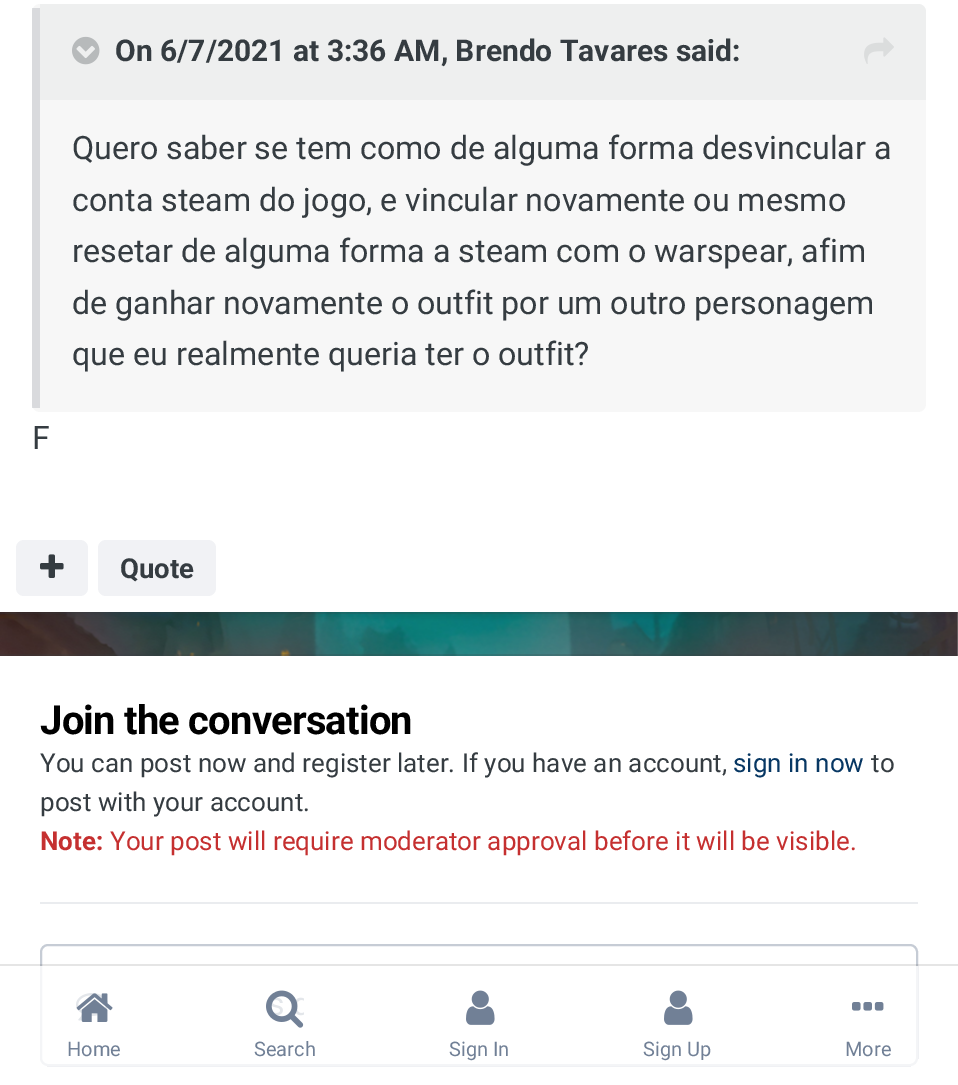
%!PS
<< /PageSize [958 1085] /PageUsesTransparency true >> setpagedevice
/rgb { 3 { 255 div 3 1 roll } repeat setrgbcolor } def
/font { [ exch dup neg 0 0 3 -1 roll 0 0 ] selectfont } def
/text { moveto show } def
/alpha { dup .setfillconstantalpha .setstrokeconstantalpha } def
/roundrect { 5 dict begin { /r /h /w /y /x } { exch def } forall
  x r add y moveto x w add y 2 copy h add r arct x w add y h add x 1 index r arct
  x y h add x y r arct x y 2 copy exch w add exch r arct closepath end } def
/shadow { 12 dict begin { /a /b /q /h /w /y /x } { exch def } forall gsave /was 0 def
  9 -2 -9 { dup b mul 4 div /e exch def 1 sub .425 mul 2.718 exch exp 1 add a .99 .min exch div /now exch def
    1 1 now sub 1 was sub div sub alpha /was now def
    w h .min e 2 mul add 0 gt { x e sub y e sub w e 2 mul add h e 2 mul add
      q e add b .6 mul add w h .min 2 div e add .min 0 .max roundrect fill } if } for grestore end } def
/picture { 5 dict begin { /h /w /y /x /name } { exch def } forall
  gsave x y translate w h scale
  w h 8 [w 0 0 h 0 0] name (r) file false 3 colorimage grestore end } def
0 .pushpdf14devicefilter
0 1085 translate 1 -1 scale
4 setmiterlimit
255 255 255 rgb
0 0 958 1085 rectfill
(img_01.rgb) 0 612 958 44 picture
0 0 0 rgb
2 -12 954 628 0 4 0.1 shadow
255 255 255 rgb
0 0 958 612 rectfill
0.2 alpha
53 60 65 rgb
0 612 958 2 rectfill
1 alpha
247 247 247 rgb
32 4 894 408 8 roundrect fill
0.15 alpha
45 55 72 rgb
32 8 8 400 rectfill
1 alpha
238 239 239 rgb
40 4 moveto 878 0 rlineto 4.5 0 8 3.5 8 8 rcurveto 0 88 rlineto -886 0 rlineto closepath fill
(img_02.rgb) 72 36 28 29 picture
(img_03.rgb) 864 37 30 27 picture
241 242 245 rgb
16 540 72 56 8 roundrect fill
(img_04.rgb) 40 554 24 24 picture
98 540 118 56 8 roundrect fill
0.2 alpha
53 60 65 rgb
0 654 958 2 rectfill
1 alpha
234 236 239 rgb
40 902 878 2 rectfill
198 204 213 rgb
2 setlinewidth
41 945 876 120 7 roundrect stroke
(img_05.rgb) 76 993 33 28 picture
0.1 alpha
0 0 0 rgb
0 964 958 2 rectfill
0.8 alpha
255 255 255 rgb
40 966 878 100 rectfill
1 alpha
(img_06.rgb) 76 993 37 29 picture
(img_07.rgb) 266 990 38 38 picture
(img_08.rgb) 466 990 29 35 picture
(img_08.rgb) 664 990 29 35 picture
(img_09.rgb) 852 1002 32 9 picture
/Roboto-Bold 30 font
53 60 65 rgb
(On 6/7/2021 at 3:36 AM, Brendo Tavares said:) 115 61 text
/Roboto-Regular 32.2 font
(Quero saber se tem como de alguma forma desvincular a) 72 159 text
(conta steam do jogo, e vincular novamente ou mesmo) 72 211 text
(resetar de alguma forma a steam com o warspear, afim) 72 262 text
(de ganhar novamente o outfit por um outro personagem) 72 314 text
(que eu realmente queria ter o outfit?) 72 365 text
(F) 32 449 text
/Roboto-Bold 27.5 font
(Quote) 120 578 text
/Roboto-Bold 40 font
0 0 0 rgb
40 734 moveto -0.8 0 (Join the conversation) ashow
/Roboto-Regular 26 font
53 60 65 rgb
(You can post now and register later. If you have an account,) 40 772 text
7 55 99 rgb
(sign in now) 733 772 text
53 60 65 rgb
(to) 871 772 text
(post with your account.) 40 811 text
/Roboto-Bold 26 font
197 48 48 rgb
(Note:) 40 850 text
/Roboto-Regular 26 font
(Your post will require moderator approval before it will be visible.) 110 850 text
/Roboto-Regular 20 font
113 128 150 rgb
(Home) 67 1056 text
(Search) 254 1056 text
(Sign In) 449 1056 text
(Sign Up) 643 1056 text
(More) 845 1056 text
.poppdf14devicefilter showpage
